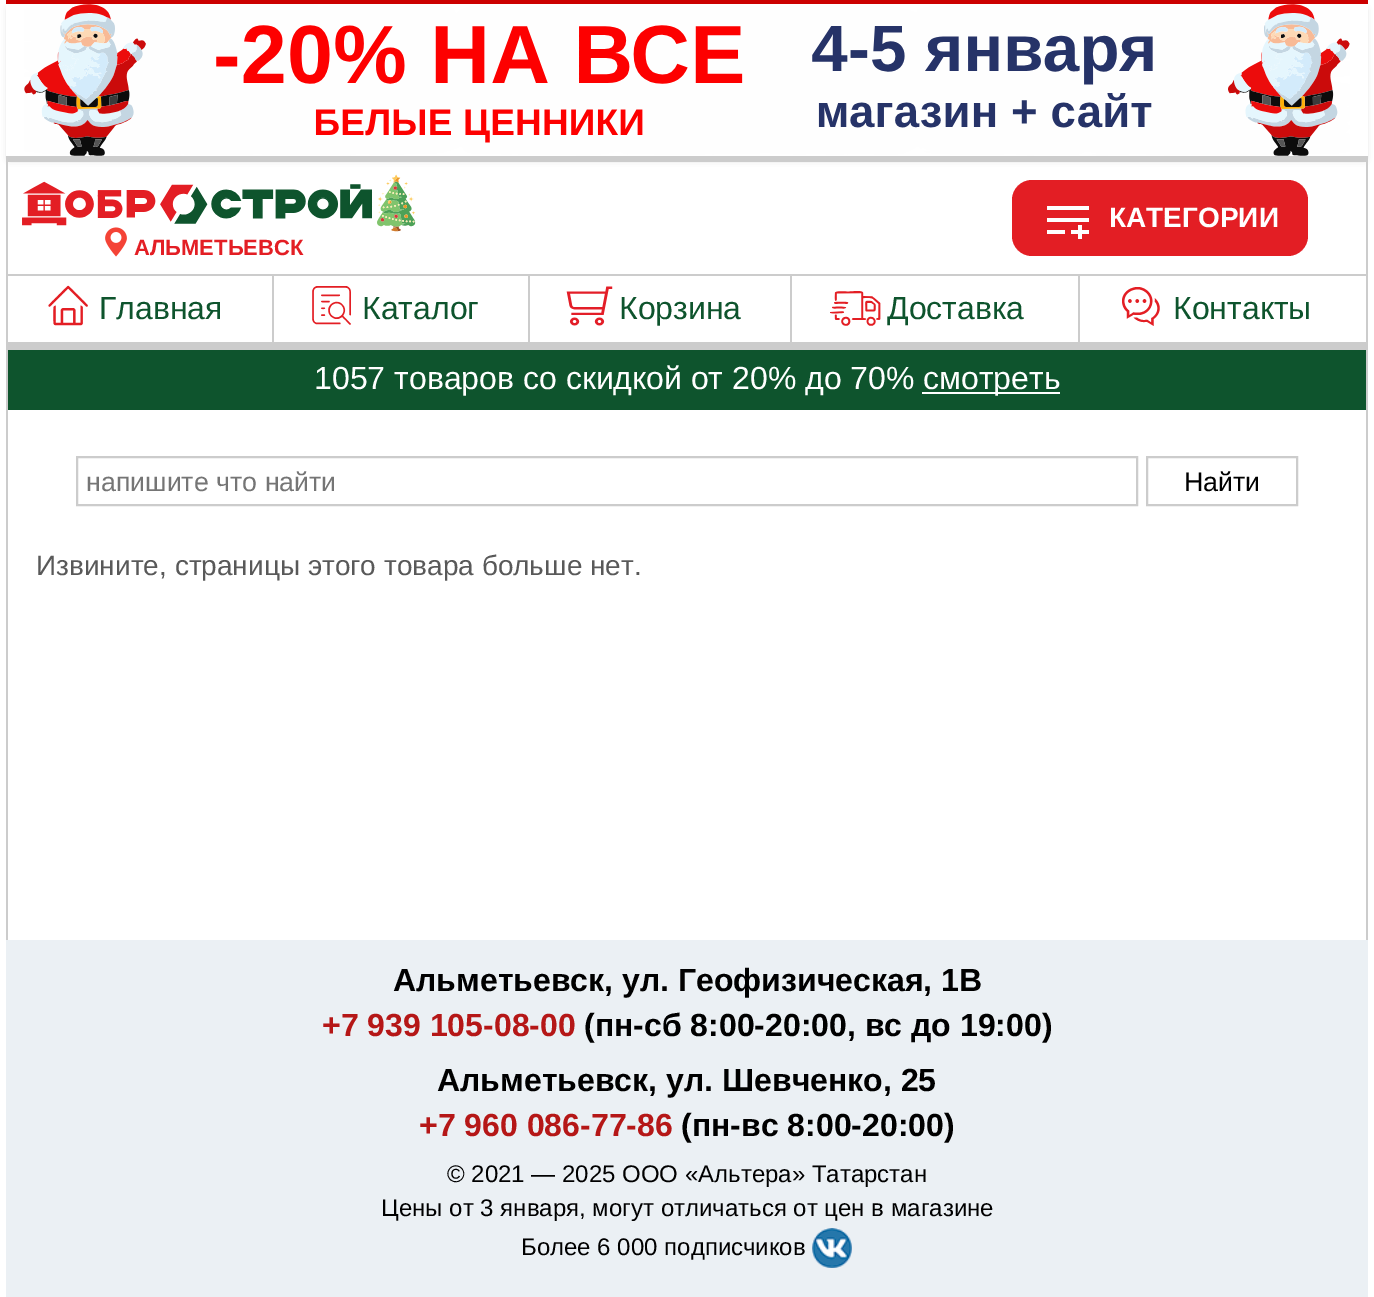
%!PS
<< /PageSize [1374 1297] /PageUsesTransparency true >> setpagedevice
/rgb { 3 { 255 div 3 1 roll } repeat setrgbcolor } def
/font { [ exch dup neg 0 0 3 -1 roll 0 0 ] selectfont } def
/text { moveto show } def
/alpha { dup .setfillconstantalpha .setstrokeconstantalpha } def
/roundrect { 5 dict begin { /r /h /w /y /x } { exch def } forall
  x r add y moveto x w add y 2 copy h add r arct x w add y h add x 1 index r arct
  x y h add x y r arct x y 2 copy exch w add exch r arct closepath end } def
/shadow { 12 dict begin { /a /b /q /h /w /y /x } { exch def } forall gsave /was 0 def
  9 -2 -9 { dup b mul 4 div /e exch def 1 sub .425 mul 2.718 exch exp 1 add a .99 .min exch div /now exch def
    1 1 now sub 1 was sub div sub alpha /was now def
    w h .min e 2 mul add 0 gt { x e sub y e sub w e 2 mul add h e 2 mul add
      q e add b .6 mul add w h .min 2 div e add .min 0 .max roundrect fill } if } for grestore end } def
/picture { 5 dict begin { /h /w /y /x /name } { exch def } forall
  gsave x y translate w h scale
  w h 8 [w 0 0 h 0 0] name (r) file false 3 colorimage grestore end } def
0 .pushpdf14devicefilter
0 1297 translate 1 -1 scale
4 setmiterlimit
255 255 255 rgb
0 0 1374 1297 rectfill
gsave
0 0 moveto 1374 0 rlineto 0 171 rlineto -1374 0 rlineto closepath 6 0 moveto 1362 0 rlineto 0 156 rlineto -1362 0 rlineto closepath eoclip newpath
0 0 0 rgb
10 10 1354 148 0 4 0.3 shadow
grestore
204 0 0 rgb
6 0 1362 4 rectfill
(img_01.rgb) 24 4 1326 152 picture
204 204 204 rgb
6 156 1362 6 rectfill
1366 156 2 784 rectfill
6 344 1362 6 rectfill
6 156 2 784 rectfill
227 30 36 rgb
1012 180 296 76 20 roundrect fill
(img_02.rgb) 1047 206 42 33 picture
(img_03.rgb) 22 174 394 58 picture
(img_04.rgb) 105 227 22 30 picture
204 204 204 rgb
8 274 1358 2 rectfill
8 342 1358 2 rectfill
272 276 2 66 rectfill
(img_05.rgb) 48 285 40 41 picture
528 276 2 66 rectfill
(img_06.rgb) 312 286 39 39 picture
790 276 2 66 rectfill
(img_07.rgb) 566 286 47 40 picture
1078 276 2 66 rectfill
(img_08.rgb) 830 291 51 35 picture
(img_09.rgb) 1122 287 38 39 picture
14 84 45 rgb
8 350 1358 60 rectfill
255 255 255 rgb
922 392 138 2 rectfill
204 204 204 rgb
2 setlinewidth
77 457 1060 48 rectstroke
1147 457 150 48 rectstroke
235 240 244 rgb
6 940 1362 357 rectfill
(img_10.rgb) 812 1228 40 40 picture
/LiberationSans-Bold 28 font
255 255 255 rgb
(КАТЕГОРИИ) 1109 227 text
/LiberationSans-Bold 22 font
227 30 36 rgb
(АЛЬМЕТЬЕВСК) 134 255 text
/LiberationSans-Regular 32 font
14 84 45 rgb
(Главная) 99 319 text
(Каталог) 362 319 text
(Корзина) 619 319 text
(Доставка) 887 319 text
(Контакты) 1173 319 text
255 255 255 rgb
(1057 товаров со скидкой от 20% до 70%) 314 389 text
(смотреть) 923 389 text
/LiberationSans-Regular 26.75 font
117 117 117 rgb
(напишите что найти) 86 491 text
0 0 0 rgb
(Найти) 1184 491 text
/LiberationSans-Regular 28 font
89 89 89 rgb
(Извините, страницы этого товара больше нет.) 36 575 text
/LiberationSans-Bold 32 font
0 0 0 rgb
(Альметьевск, ул. Геофизическая, 1В) 393 991 text
181 23 23 rgb
(+7 939 105-08-00) 322 1036 text
0 0 0 rgb
(\(пн-сб 8:00-20:00, вс до 19:00\)) 584 1036 text
(Альметьевск, ул. Шевченко, 25) 437 1091 text
181 23 23 rgb
(+7 960 086-77-86) 419 1136 text
0 0 0 rgb
(\(пн-вс 8:00-20:00\)) 681 1136 text
/LiberationSans-Regular 24 font
(© 2021 — 2025 ООО «Альтера» Татарстан) 447 1182 text
(Цены от 3 января, могут отличаться от цен в магазине) 381 1216 text
(Более 6 000 подписчиков) 521 1255 text
.poppdf14devicefilter showpage
